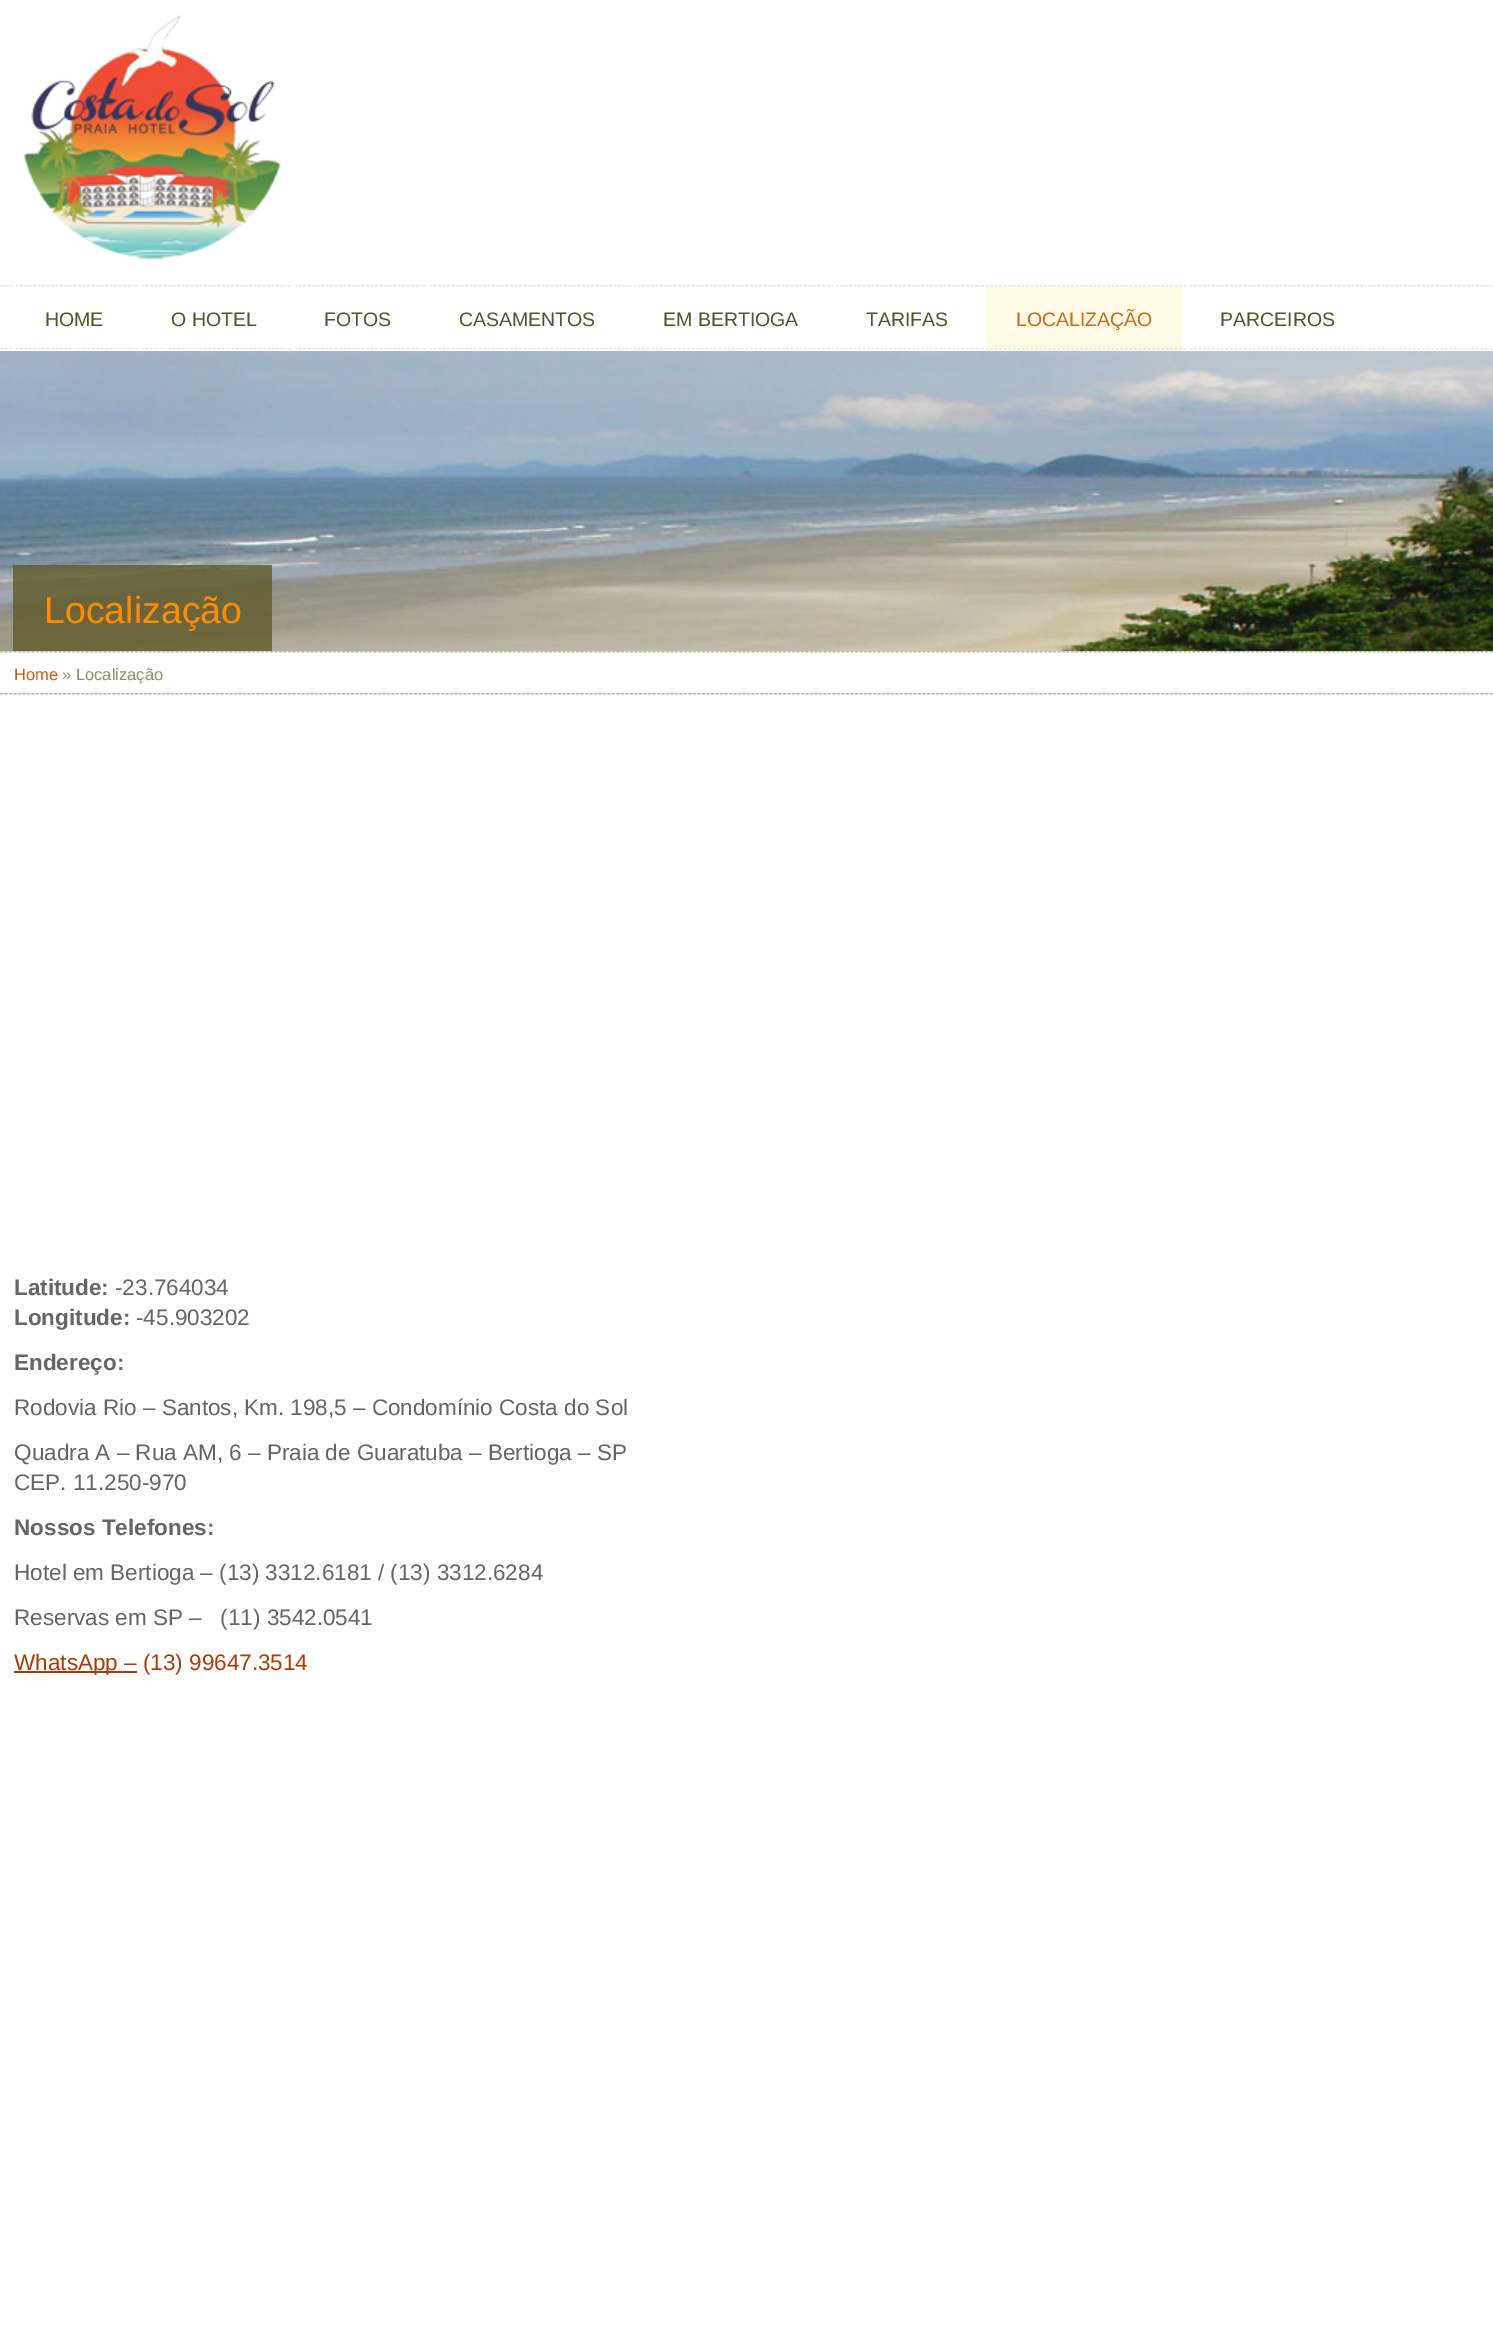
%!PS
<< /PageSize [1493 2352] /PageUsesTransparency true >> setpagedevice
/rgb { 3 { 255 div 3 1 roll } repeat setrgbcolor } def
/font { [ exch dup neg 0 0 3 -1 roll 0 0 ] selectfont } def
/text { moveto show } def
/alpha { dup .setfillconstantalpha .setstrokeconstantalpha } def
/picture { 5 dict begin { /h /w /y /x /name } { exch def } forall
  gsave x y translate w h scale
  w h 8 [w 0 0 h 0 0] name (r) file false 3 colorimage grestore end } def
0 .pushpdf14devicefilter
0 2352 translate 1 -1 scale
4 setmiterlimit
255 255 255 rgb
0 0 1493 2352 rectfill
(img_01.rgb) 23 15 258 245 picture
(img_02.rgb) 0 285 1493 65 picture
16 285 118 65 rectfill
(img_03.rgb) 16 285 118 65 picture
14 285 2 66 rectfill
142 285 145 65 rectfill
(img_04.rgb) 142 285 145 65 picture
140 285 2 66 rectfill
295 285 127 65 rectfill
(img_05.rgb) 295 285 127 65 picture
293 285 2 66 rectfill
430 285 196 65 rectfill
(img_06.rgb) 430 285 196 65 picture
428 285 2 66 rectfill
634 286 194 64 rectfill
(img_07.rgb) 631 285 197 65 picture
632 285 2 66 rectfill
836 286 142 64 rectfill
(img_08.rgb) 836 285 142 65 picture
834 285 2 66 rectfill
255 250 227 rgb
986 286 196 65 rectfill
(img_09.rgb) 986 285 196 65 picture
255 255 255 rgb
984 285 2 66 rectfill
1190 286 175 64 rectfill
(img_10.rgb) 1190 285 175 65 picture
1188 285 2 66 rectfill
(img_11.rgb) 0 351 1493 300 picture
0.8 alpha
95 89 42 rgb
13 565 259 86 rectfill
1 alpha
(img_12.rgb) 0 651 1493 2 picture
(img_13.rgb) 0 693 1493 2 picture
175 59 8 rgb
14 1671 123 2 rectfill
/LiberationSans-Regular 19.5 font
84 86 40 rgb
(HOME) 45 326 text
(O HOTEL) 171 326 text
(FOTOS) 324 326 text
(CASAMENTOS) 459 326 text
(EM BERTIOGA) 663 326 text
(TARIFAS) 866 326 text
202 105 34 rgb
(LOCALIZAÇÃO) 1016 326 text
84 86 40 rgb
(PARCEIROS) 1220 326 text
/LiberationSans-Regular 37.5 font
255 140 0 rgb
(Localização) 44 623 text
/LiberationSans-Regular 16.5 font
198 94 18 rgb
(Home) 14 680 text
142 144 103 rgb
(» Localização) 62 680 text
/LiberationSans-Bold 22.5 font
102 102 102 rgb
(Latitude:) 14 1295 text
/LiberationSans-Regular 22.5 font
(-23.764034) 115 1295 text
/LiberationSans-Bold 22.5 font
(Longitude:) 14 1325 text
/LiberationSans-Regular 22.5 font
(-45.903202) 136 1325 text
/LiberationSans-Bold 22.5 font
(Endereço:) 14 1370 text
/LiberationSans-Regular 22.5 font
(Rodovia Rio – Santos, Km. 198,5 – Condomínio Costa do Sol) 14 1415 text
(Quadra A – Rua AM, 6 – Praia de Guaratuba – Bertioga – SP) 14 1460 text
(CEP. 11.250-970) 14 1490 text
/LiberationSans-Bold 22.5 font
(Nossos Telefones:) 14 1535 text
/LiberationSans-Regular 22.5 font
(Hotel em Bertioga – \(13\) 3312.6181 / \(13\) 3312.6284) 14 1580 text
(Reservas em SP –   \(11\) 3542.0541) 14 1625 text
175 59 8 rgb
(WhatsApp – \(13\) 99647.3514) 14 1670 text
.poppdf14devicefilter showpage
